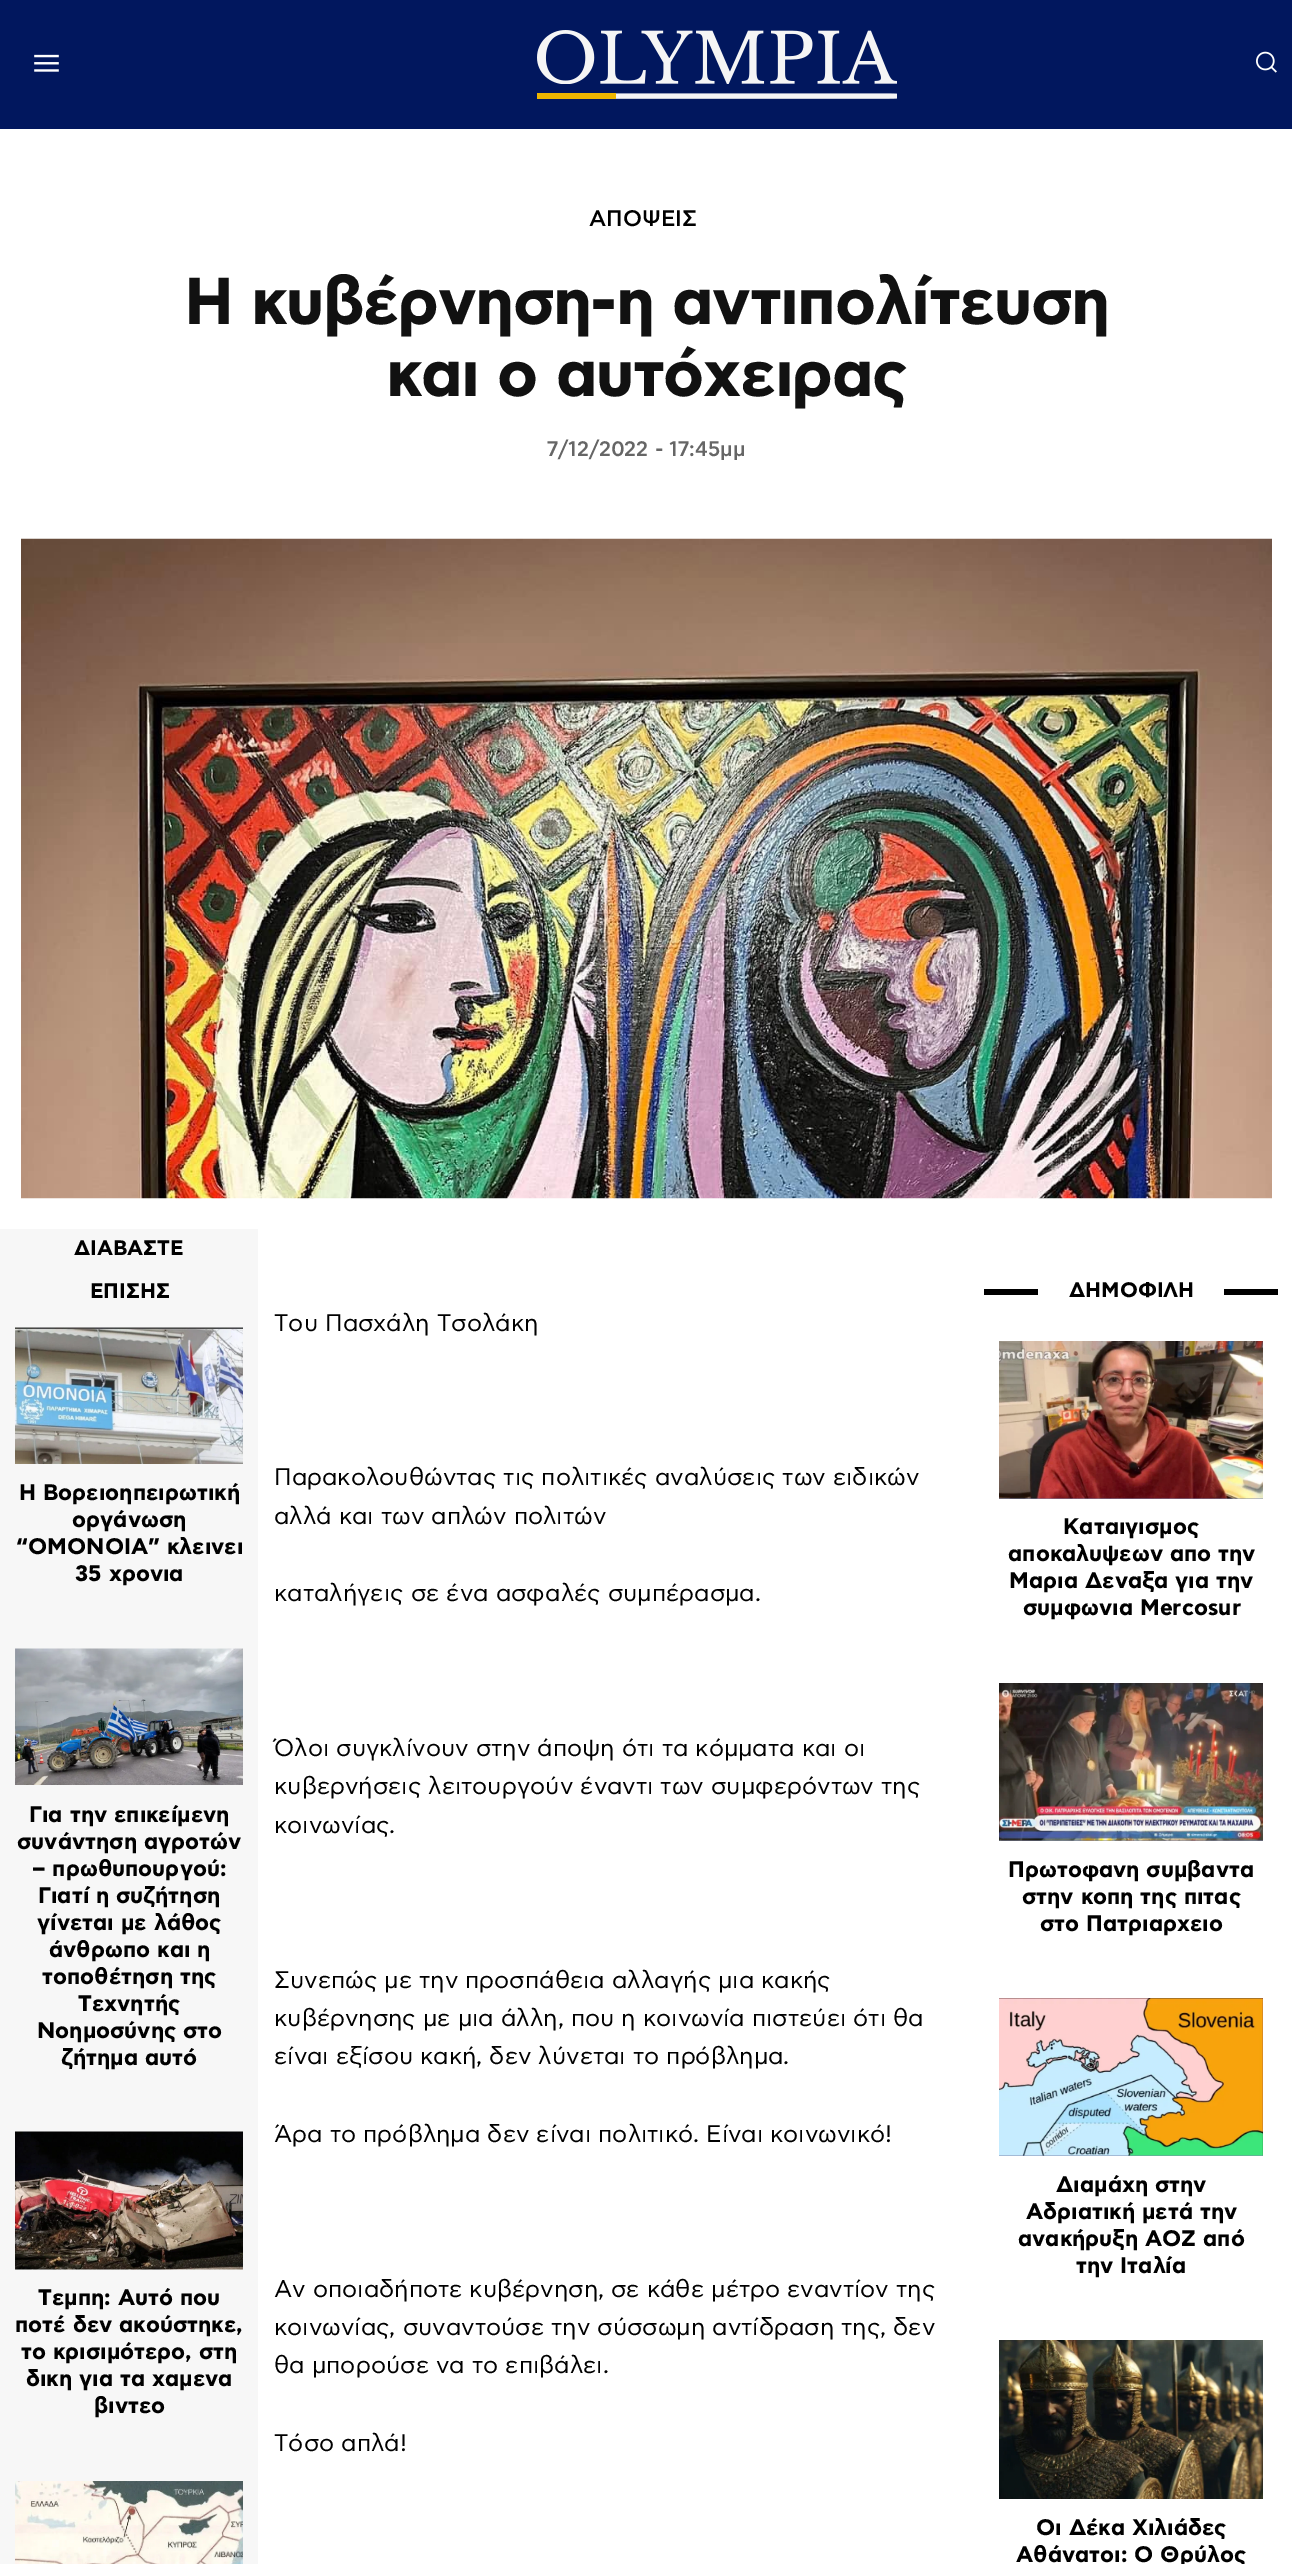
%!PS
<< /PageSize [1292 2564] >> setpagedevice
/rgb { 3 { 255 div 3 1 roll } repeat setrgbcolor } def
/font { [ exch dup neg 0 0 3 -1 roll 0 0 ] selectfont } def
/text { moveto show } def
/picture { 5 dict begin { /h /w /y /x /name } { exch def } forall
  gsave x y translate w h scale
  w h 8 [w 0 0 h 0 0] name (r) file false 3 colorimage grestore end } def
0 2564 translate 1 -1 scale
4 setmiterlimit
255 255 255 rgb
0 0 1292 2564 rectfill
1 23 94 rgb
0 0 1292 129 rectfill
(img_01.rgb) 34 54 25 18 picture
(img_02.rgb) 537 30 360 69 picture
(img_03.rgb) 1256 51 21 22 picture
(img_04.rgb) 21 538 1251 661 picture
247 247 247 rgb
0 1229 258 1335 rectfill
(img_05.rgb) 15 1327 228 137 picture
(img_06.rgb) 15 1648 228 137 picture
(img_07.rgb) 15 2131 228 139 picture
(img_08.rgb) 15 2481 228 83 picture
0 0 0 rgb
984 1289 54 6 rectfill
1224 1289 54 6 rectfill
(img_10.rgb) 999 1498 264 1 picture
(img_09.rgb) 999 1341 264 158 picture
(img_10.rgb) 999 1840 264 1 picture
(img_11.rgb) 999 1683 264 158 picture
(img_10.rgb) 999 2155 264 1 picture
(img_12.rgb) 999 1998 264 158 picture
(img_13.rgb) 999 2340 264 159 picture
/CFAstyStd-Medium 22.5 font
(ΑΠΟΨΕΙΣ) 589 226 text
/CFAstyStd-Bold 66 font
17 17 17 rgb
184 324 moveto -1.5 0 (Η κυβέρνηση-η αντιπολίτευση) ashow
386 396 moveto -1.5 0 (και ο αυτόχειρας) ashow
/CFAstyStd-Medium 21 font
102 102 102 rgb
(7/12/2022 - 17:45μμ) 547 456 text
/CFAstyStd-Bold 21 font
0 0 0 rgb
(ΔΙΑΒΑΣΤΕ) 74 1255 text
(ΕΠΙΣΗΣ) 90 1298 text
/CFAstyStd-Bold 22.5 font
(Η Βορειοηπειρωτική) 19 1500 text
(οργάνωση) 72 1527 text
(“ΟΜΟΝΟΙΑ” κλεινει) 16 1554 text
(35 χρονια) 75 1581 text
(Για την επικείμενη) 29 1822 text
(συνάντηση αγροτών) 17 1849 text
(– πρωθυπουργού:) 32 1876 text
(Γιατί η συζήτηση) 38 1903 text
(γίνεται με λάθος) 37 1930 text
(άνθρωπο και η) 49 1957 text
(τοποθέτηση της) 42 1984 text
(Τεχνητής) 78 2011 text
(Νοημοσύνης στο) 37 2038 text
(ζήτημα αυτό) 61 2065 text
(Τεμπη: Αυτό που) 38 2305 text
(ποτέ δεν ακούστηκε,) 15 2332 text
(το κρισιμότερο, στη) 21 2359 text
(δικη για τα χαμενα) 26 2386 text
(βιντεο) 94 2413 text
/CFAstyStd-Regular 24 font
(Του Πασχάλη Τσολάκη) 274 1331 text
(Παρακολουθώντας τις πολιτικές αναλύσεις των ειδικών) 274 1485 text
(αλλά και των απλών πολιτών) 274 1524 text
(καταλήγεις σε ένα ασφαλές συμπέρασμα.) 274 1601 text
(Όλοι συγκλίνουν στην άποψη ότι τα κόμματα και οι) 274 1756 text
(κυβερνήσεις λειτουργούν έναντι των συμφερόντων της) 274 1794 text
(κοινωνίας.) 274 1833 text
(Συνεπώς με την προσπάθεια αλλαγής μια κακής) 274 1988 text
(κυβέρνησης με μια άλλη, που η κοινωνία πιστεύει ότι θα) 274 2026 text
(είναι εξίσου κακή, δεν λύνεται το πρόβλημα.) 274 2064 text
(Άρα το πρόβλημα δεν είναι πολιτικό. Είναι κοινωνικό!) 274 2142 text
(Αν οποιαδήποτε κυβέρνηση, σε κάθε μέτρο εναντίον της) 274 2297 text
(κοινωνίας, συναντούσε την σύσσωμη αντίδραση της, δεν) 274 2335 text
(θα μπορούσε να το επιβάλει.) 274 2373 text
(Τόσο απλά!) 274 2451 text
/CFAstyStd-Bold 21 font
(ΔΗΜΟΦΙΛΗ) 1069 1297 text
/CFAstyStd-Bold 22.5 font
(Καταιγισμος) 1063 1534 text
(αποκαλυψεων απο την) 1008 1561 text
(Μαρια Δεναξα για την) 1009 1588 text
(συμφωνια Mercosur) 1023 1615 text
(Πρωτοφανη συμβαντα) 1008 1877 text
(στην κοπη της πιτας) 1022 1904 text
(στο Πατριαρχειο) 1040 1931 text
(Διαμάχη στην) 1056 2192 text
(Αδριατική μετά την) 1026 2219 text
(ανακήρυξη ΑΟΖ από) 1018 2246 text
(την Ιταλία) 1076 2273 text
(Οι Δέκα Χιλιάδες) 1036 2535 text
(Αθάνατοι: Ο Θρύλος) 1016 2562 text
showpage
